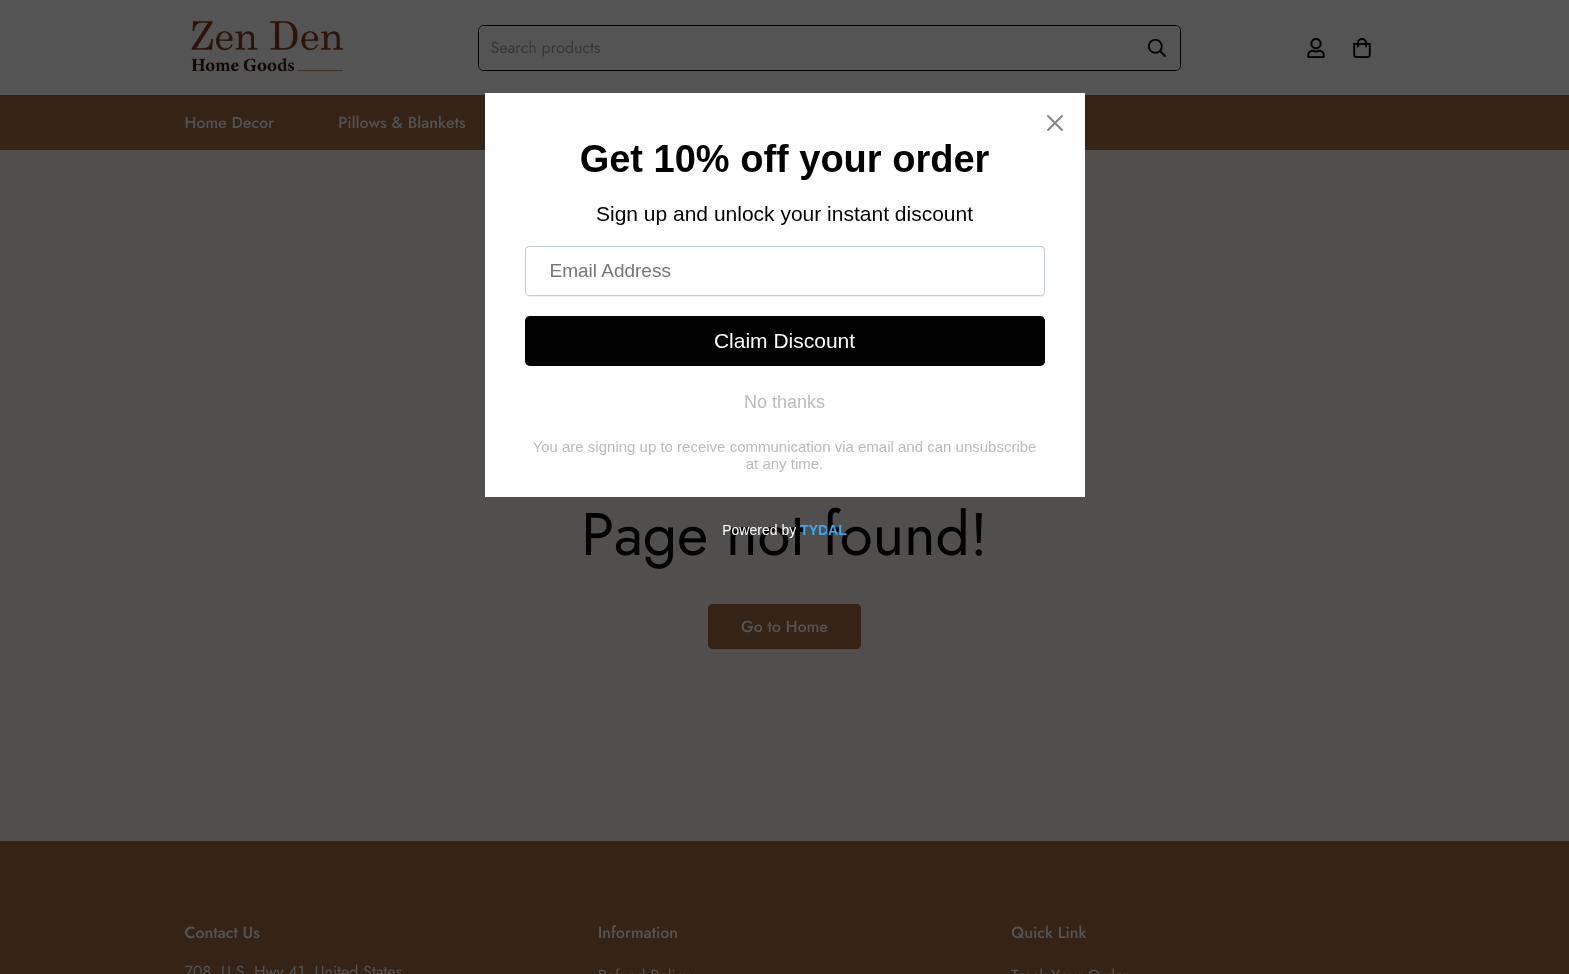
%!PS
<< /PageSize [1569 974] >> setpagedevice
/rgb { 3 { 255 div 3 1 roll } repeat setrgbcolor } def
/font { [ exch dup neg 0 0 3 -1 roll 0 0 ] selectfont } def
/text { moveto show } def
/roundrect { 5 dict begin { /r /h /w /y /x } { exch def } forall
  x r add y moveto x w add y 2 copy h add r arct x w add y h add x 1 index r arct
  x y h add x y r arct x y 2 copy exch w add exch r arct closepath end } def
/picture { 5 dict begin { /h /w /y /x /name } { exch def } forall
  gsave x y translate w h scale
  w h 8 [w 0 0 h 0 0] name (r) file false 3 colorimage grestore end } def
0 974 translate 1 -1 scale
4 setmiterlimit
255 255 255 rgb
0 0 1569 974 rectfill
(img_02.rgb) 191 21 153 51 picture
0 0 0 rgb
478.5 25.5 702 45 5.5 roundrect stroke
255 255 255 rgb
479 26 701 44 4 roundrect fill
(img_03.rgb) 1148 39 18 18 picture
(img_04.rgb) 1307 38 18 20 picture
(img_05.rgb) 1353 38 18 20 picture
161 107 63 rgb
0 95 1569 55 rectfill
245 241 237 rgb
0 150 1569 691 rectfill
161 107 63 rgb
708.5 604.5 152 44 4.5 roundrect gsave fill grestore
stroke
0 841 1569 133 rectfill
/Jost-Regular 16 font
156 163 175 rgb
(Search products) 491 53 text
/Jost-Medium 16 font
248 248 248 rgb
(Home Decor) 185 128 text
(Pillows & Blankets) 338 128 text
/Jost-Regular 60 font
0 0 0 rgb
(Page not found!) 581 555 text
/Jost-Medium 16 font
255 255 255 rgb
(Go to Home) 741 632 text
(Contact Us) 185 938 text
/Jost-Regular 16 font
(708, U.S. Hwy 41, United States) 185 977 text
/Jost-Medium 16 font
(Information) 598 938 text
(Quick Link) 1011 938 text
(img_01.rgb) 0 0 1569 974 picture
showpage
